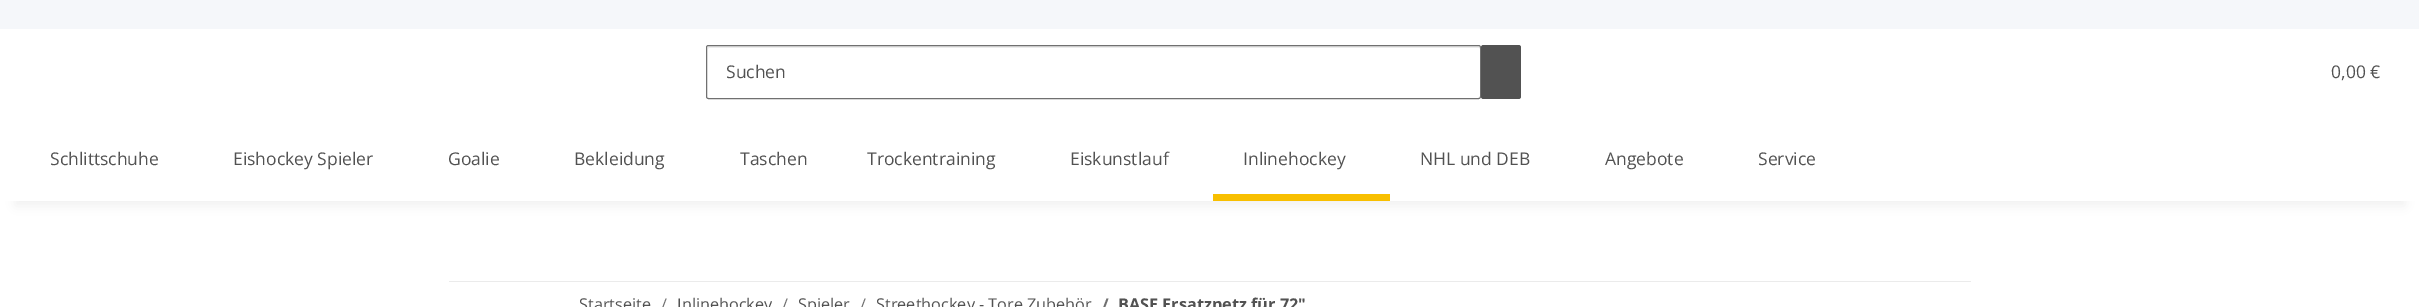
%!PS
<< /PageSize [2419 307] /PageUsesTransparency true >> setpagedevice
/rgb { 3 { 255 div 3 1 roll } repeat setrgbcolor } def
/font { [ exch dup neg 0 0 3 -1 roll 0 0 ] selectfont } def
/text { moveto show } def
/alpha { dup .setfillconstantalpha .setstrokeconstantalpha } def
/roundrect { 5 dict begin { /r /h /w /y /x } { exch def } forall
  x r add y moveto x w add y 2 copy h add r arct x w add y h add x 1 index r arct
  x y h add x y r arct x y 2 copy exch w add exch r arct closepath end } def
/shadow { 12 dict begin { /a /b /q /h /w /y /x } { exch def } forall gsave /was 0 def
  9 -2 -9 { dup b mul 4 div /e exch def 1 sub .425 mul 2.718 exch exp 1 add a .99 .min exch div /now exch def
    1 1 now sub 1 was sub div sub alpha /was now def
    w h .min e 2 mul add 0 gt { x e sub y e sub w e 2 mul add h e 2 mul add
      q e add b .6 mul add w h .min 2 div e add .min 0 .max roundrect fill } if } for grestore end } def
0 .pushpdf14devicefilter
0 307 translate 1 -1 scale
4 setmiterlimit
245 247 250 rgb
0 0 2419 307 rectfill
255 255 255 rgb
0 201 2419 106 rectfill
0 0 0 rgb
15 64 2390 142 0 5.5 0.06 shadow
255 255 255 rgb
0 29 2419 172 rectfill
236 236 236 rgb
709 48 moveto 770 0 rlineto 1 1 rlineto 0 -2 rlineto -1 -1 rlineto -771 0 rlineto 0 3 rlineto 0 -1 0 -1 1 -1 rcurveto closepath fill
112 112 112 rgb
706.5 45.5 774 53 2 roundrect stroke
82 82 82 rgb
1481 45 40 54 2.5 roundrect fill
248 191 0 rgb
1213 194 177 7 rectfill
235 235 235 rgb
449 281 1522 1 rectfill
/OpenSans-Regular 17.5 font
82 82 82 rgb
(Suchen) 726 78 text
(0,00 €) 2331 78 text
(Schlittschuhe) 50 165 text
(Eishockey Spieler) 233 165 text
(Goalie) 448 165 text
(Bekleidung) 574 165 text
(Taschen) 740 165 text
(Trockentraining) 867 165 text
(Eiskunstlauf) 1070 165 text
(Inlinehockey) 1243 165 text
(NHL und DEB) 1420 165 text
(Angebote) 1605 165 text
(Service) 1758 165 text
/OpenSans-Regular 16.25 font
(Startseite) 579 310 text
112 112 112 rgb
(/) 661 310 text
82 82 82 rgb
(Inlinehockey) 677 310 text
112 112 112 rgb
(/) 782 310 text
82 82 82 rgb
(Spieler) 798 310 text
112 112 112 rgb
(/) 860 310 text
82 82 82 rgb
(Streethockey - Tore Zubehör) 876 310 text
/OpenSans-Bold 16.25 font
112 112 112 rgb
(/) 1102 310 text
82 82 82 rgb
(BASE Ersatznetz für 72") 1118 310 text
.poppdf14devicefilter showpage
